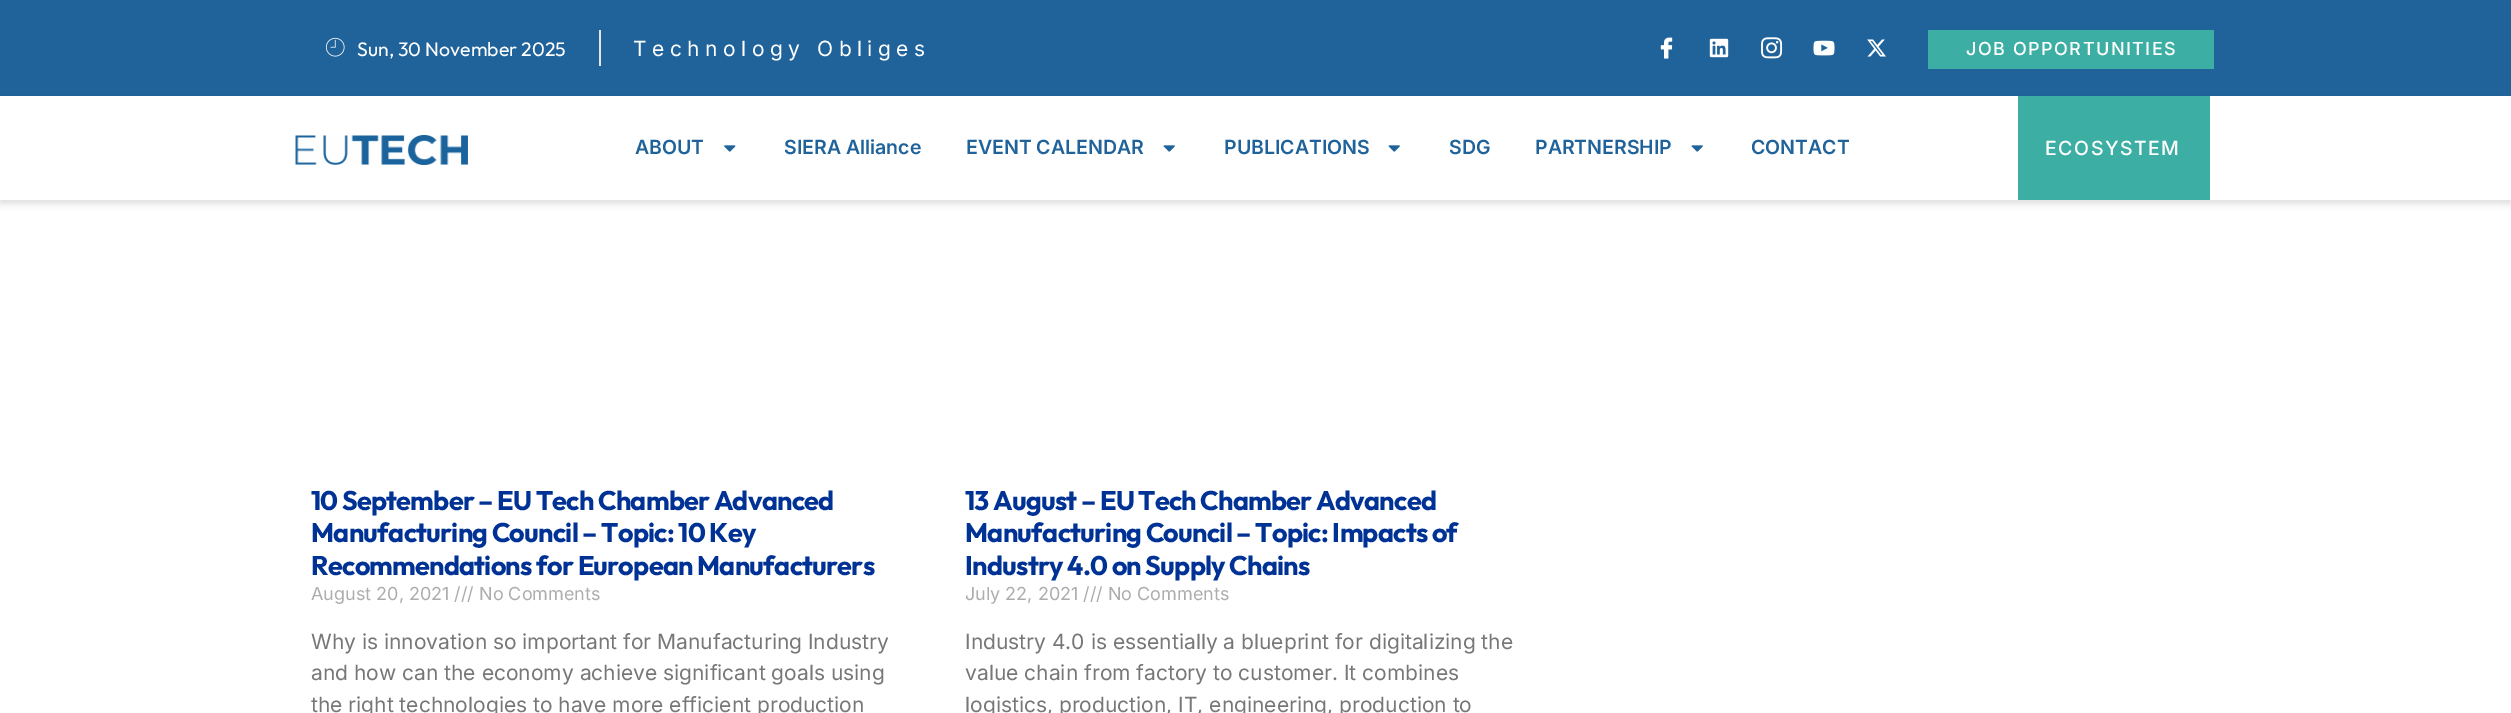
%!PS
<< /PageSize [2511 713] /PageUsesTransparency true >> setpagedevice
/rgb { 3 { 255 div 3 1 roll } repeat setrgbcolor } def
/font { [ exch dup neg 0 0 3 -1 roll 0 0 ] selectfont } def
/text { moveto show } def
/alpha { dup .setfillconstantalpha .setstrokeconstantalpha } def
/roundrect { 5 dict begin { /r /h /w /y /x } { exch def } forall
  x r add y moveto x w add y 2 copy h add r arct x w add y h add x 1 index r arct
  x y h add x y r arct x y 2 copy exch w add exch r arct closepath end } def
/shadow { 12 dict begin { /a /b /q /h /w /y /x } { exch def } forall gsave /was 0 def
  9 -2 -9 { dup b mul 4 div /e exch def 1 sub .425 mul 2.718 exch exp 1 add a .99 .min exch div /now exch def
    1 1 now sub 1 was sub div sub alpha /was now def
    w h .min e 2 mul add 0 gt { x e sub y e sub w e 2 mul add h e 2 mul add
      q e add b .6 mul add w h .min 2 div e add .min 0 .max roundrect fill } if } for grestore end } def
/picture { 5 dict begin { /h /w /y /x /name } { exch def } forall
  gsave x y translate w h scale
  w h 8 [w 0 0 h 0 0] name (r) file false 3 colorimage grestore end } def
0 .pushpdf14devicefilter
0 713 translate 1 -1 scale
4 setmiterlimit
255 255 255 rgb
0 0 2511 713 rectfill
32 99 155 rgb
0 0 2511 96 rectfill
230 230 230 rgb
599 30 2 36 rectfill
(img_01.rgb) 326 37 19 20 picture
(img_02.rgb) 1660 37 13 22 picture
(img_03.rgb) 1709 38 20 20 picture
(img_04.rgb) 1761 37 22 22 picture
(img_05.rgb) 1813 40 22 16 picture
(img_06.rgb) 1867 39 19 18 picture
60 174 163 rgb
1928 30 286 39 rectfill
0 0 0 rgb
0 99 2511 104 0 4 0.15 shadow
255 255 255 rgb
0 96 2511 104 rectfill
(img_07.rgb) 295 135 173 30 picture
(img_08.rgb) 724 145 12 7 picture
(img_09.rgb) 1163 145 12 7 picture
(img_09.rgb) 1388 145 12 7 picture
(img_09.rgb) 1691 145 12 7 picture
60 174 163 rgb
2018 96 192 104 rectfill
/Outfit-Regular 19.5 font
255 255 255 rgb
(Sun, 30 November 2025) 357 56 text
/Inter-Regular 21 font
633 56 moveto 5.5 0 (Technology Obliges) ashow
/Inter-Medium 18 font
1966 55 moveto 1.5 0 (JOB OPPORTUNITIES) ashow
/Inter-SemiBold 19.5 font
32 99 155 rgb
(ABOUT) 635 154 text
(SIERA Alliance) 784 154 text
(EVENT CALENDAR) 966 154 text
(PUBLICATIONS) 1224 154 text
(SDG) 1449 154 text
(PARTNERSHIP) 1535 154 text
(CONTACT) 1751 154 text
/Inter-Medium 19.5 font
255 255 255 rgb
2045 155 moveto 1.5 0 (ECOSYSTEM) ashow
/Outfit-Bold 27 font
0 50 149 rgb
311 510 moveto -0.75 0 (10 September – EU Tech Chamber Advanced) ashow
311 542 moveto -0.75 0 (Manufacturing Council – Topic: 10 Key) ashow
311 575 moveto -0.75 0 (Recommendations for European Manufacturers) ashow
/Inter-Regular 18 font
173 173 173 rgb
(August 20, 2021 /// No Comments) 311 600 text
/Inter-Regular 21 font
119 119 119 rgb
(Why is innovation so important for Manufacturing Industry) 311 649 text
(and how can the economy achieve significant goals using) 311 680 text
(the right technologies to have more efficient production) 311 712 text
/Outfit-Bold 27 font
0 50 149 rgb
965 510 moveto -0.75 0 (13 August – EU Tech Chamber Advanced) ashow
965 542 moveto -0.75 0 (Manufacturing Council – Topic: Impacts of) ashow
965 575 moveto -0.75 0 (Industry 4.0 on Supply Chains) ashow
/Inter-Regular 18 font
173 173 173 rgb
(July 22, 2021 /// No Comments) 965 600 text
/Inter-Regular 21 font
119 119 119 rgb
(Industry 4.0 is essentially a blueprint for digitalizing the) 965 649 text
(value chain from factory to customer. It combines) 965 680 text
(logistics, production, IT, engineering, production to) 965 712 text
.poppdf14devicefilter showpage
